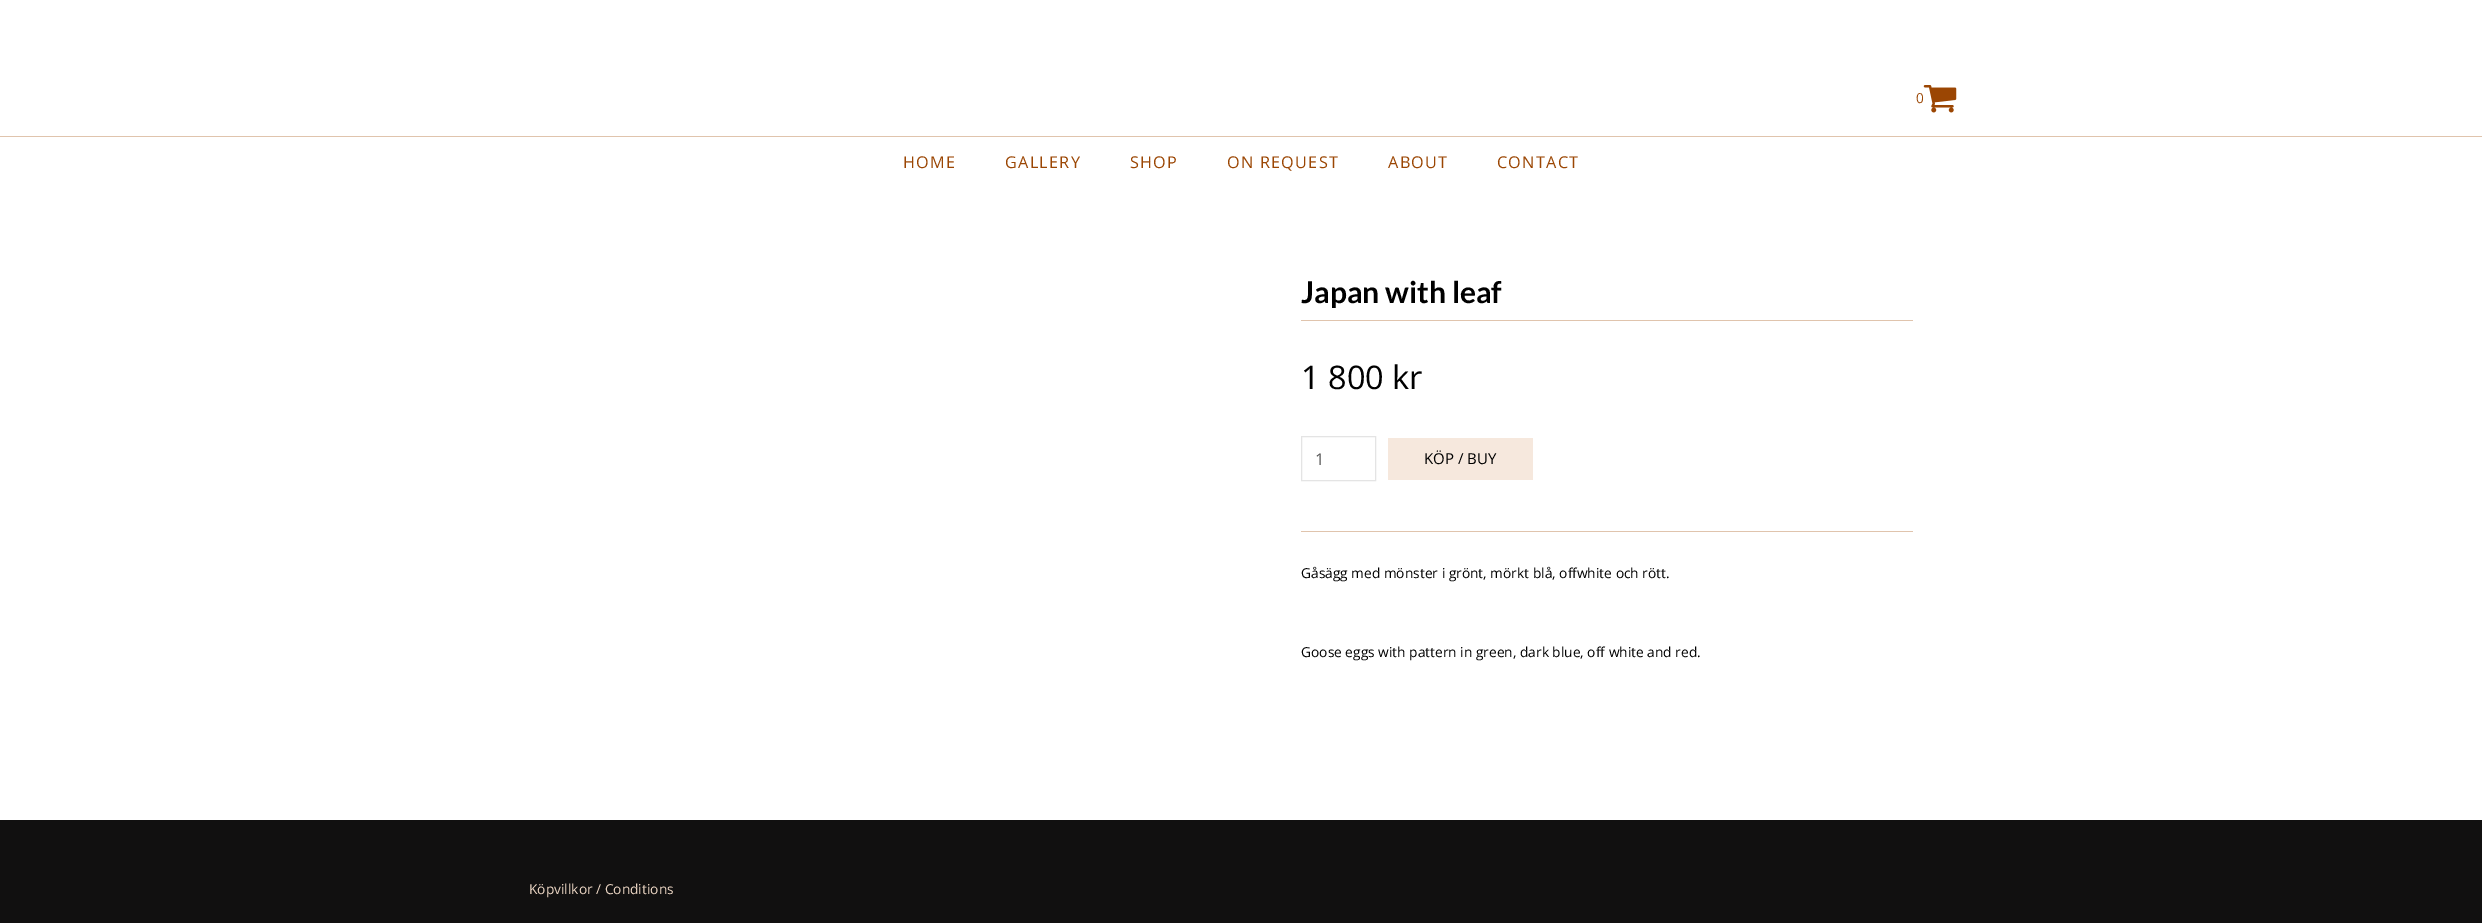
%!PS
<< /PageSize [2482 923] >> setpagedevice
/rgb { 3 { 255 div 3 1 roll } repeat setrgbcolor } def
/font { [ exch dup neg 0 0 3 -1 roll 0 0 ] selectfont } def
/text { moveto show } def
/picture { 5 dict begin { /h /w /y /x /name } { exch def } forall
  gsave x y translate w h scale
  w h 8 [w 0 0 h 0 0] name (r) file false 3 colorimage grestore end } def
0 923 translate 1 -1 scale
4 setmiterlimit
255 255 255 rgb
0 0 2482 923 rectfill
224 196 173 rgb
0 136 2482 1 rectfill
1301 320 612 1 rectfill
228 228 228 rgb
1301.5 436.5 74 44 rectstroke
246 232 221 rgb
1388 438 145 42 rectfill
224 196 173 rgb
1301 531 612 1 rectfill
17 16 16 rgb
0 820 2482 103 rectfill
/OpenSans-Regular 13.75 font
155 70 3 rgb
(0) 1916 103 text
(img_01.rgb) 1923 85 34 28 picture
/OpenSans-Regular 16.25 font
903 168 moveto 1.25 0 (HOME) ashow
1005 168 moveto 1.25 0 (GALLERY) ashow
1130 168 moveto 1.25 0 (SHOP) ashow
1227 168 moveto 1.25 0 (ON REQUEST) ashow
1388 168 moveto 1.25 0 (ABOUT) ashow
1497 168 moveto 1.25 0 (CONTACT) ashow
/Lato-Bold 30 font
0 0 0 rgb
(Japan with leaf) 1301 303 text
/OpenSans-Regular 32.5 font
(1 800 kr) 1301 389 text
/OpenSans-Regular 16.25 font
85 85 85 rgb
(1) 1315 465 text
/OpenSans-Regular 15 font
0 0 0 rgb
(KÖP / BUY) 1424 464 text
/OpenSans-Regular 13.75 font
(Gåsägg med mönster i grönt, mörkt blå, offwhite och rött.) 1301 578 text
(Goose eggs with pattern in green, dark blue, off white and red.) 1301 657 text
237 215 197 rgb
(Köpvillkor / Conditions) 529 894 text
showpage
